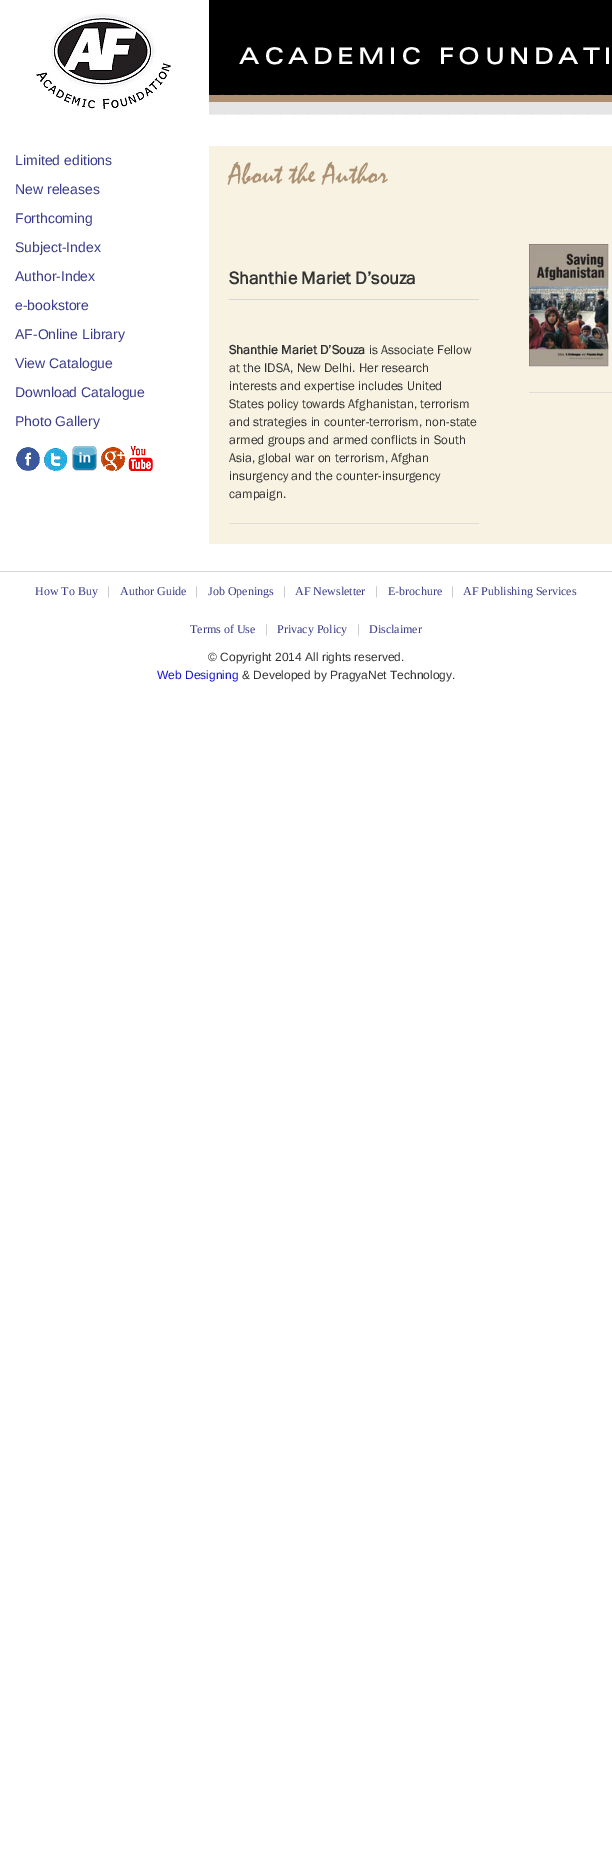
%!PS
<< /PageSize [612 1855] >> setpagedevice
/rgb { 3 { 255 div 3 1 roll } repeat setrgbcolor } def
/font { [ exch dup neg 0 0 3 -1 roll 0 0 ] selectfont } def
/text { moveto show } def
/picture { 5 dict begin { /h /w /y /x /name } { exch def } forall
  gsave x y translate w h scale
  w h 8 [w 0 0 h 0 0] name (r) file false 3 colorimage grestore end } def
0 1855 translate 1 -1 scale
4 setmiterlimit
255 255 255 rgb
0 0 612 1855 rectfill
(img_01.rgb) 209 0 403 115 picture
(img_02.rgb) 0 0 209 115 picture
(img_03.rgb) 16 447 24 24 picture
(img_04.rgb) 44 448 23 23 picture
(img_05.rgb) 72 446 25 25 picture
(img_06.rgb) 101 447 24 24 picture
(img_07.rgb) 128 446 25 25 picture
247 242 226 rgb
209 146 403 398 rectfill
227 220 212 rgb
229 523 250 1 rectfill
214 214 214 rgb
229 299 250 1 rectfill
227 220 212 rgb
529 392 83 1 rectfill
(img_08.rgb) 529 244 80 123 picture
214 214 214 rgb
0 571 612 1 rectfill
/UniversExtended-Bold 22 font
255 255 255 rgb
239 64 moveto 5 0 (ACADEMIC FOUNDATI) ashow
/LiberationSans-Regular 14 font
58 60 138 rgb
(Limited editions) 15 165 text
(New releases) 15 194 text
(Forthcoming) 15 223 text
(Subject-Index) 15 252 text
(Author-Index) 15 281 text
(e-bookstore) 15 310 text
(AF-Online Library) 15 339 text
(View Catalogue) 15 368 text
(Download Catalogue) 15 397 text
(Photo Gallery) 15 426 text
/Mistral-Regular 30 font
173 145 114 rgb
(About the Author) 229 183 text
/FranklinGothic-Bold 18 font
51 51 51 rgb
(Shanthie Mariet D’souza) 229 284 text
/FranklinGothic-Bold 13 font
(Shanthie Mariet D’Souza) 229 354 text
/FranklinGothic-Regular 13 font
(is Associate Fellow) 369 354 text
(at the IDSA, New Delhi. Her research) 229 372 text
(interests and expertise includes United) 229 390 text
(States policy towards Afghanistan, terrorism) 229 408 text
(and strategies in counter-terrorism, non-state) 229 426 text
(armed groups and armed conflicts in South) 229 444 text
(Asia, global war on terrorism, Afghan) 229 462 text
(insurgency and the counter-insurgency) 229 480 text
(campaign.) 229 498 text
/LiberationSerif-Regular 12 font
58 60 138 rgb
(How To Buy) 35 595 text
/LiberationSans-Regular 12 font
204 204 204 rgb
(|) 107 595 text
/LiberationSerif-Regular 12 font
58 60 138 rgb
(Author Guide) 120 595 text
/LiberationSans-Regular 12 font
204 204 204 rgb
(|) 195 595 text
/LiberationSerif-Regular 12 font
58 60 138 rgb
(Job Openings) 208 595 text
/LiberationSans-Regular 12 font
204 204 204 rgb
(|) 283 595 text
/LiberationSerif-Regular 12 font
58 60 138 rgb
(AF Newsletter) 295 595 text
/LiberationSans-Regular 12 font
204 204 204 rgb
(|) 375 595 text
/LiberationSerif-Regular 12 font
58 60 138 rgb
(E-brochure) 388 595 text
/LiberationSans-Regular 12 font
204 204 204 rgb
(|) 451 595 text
/LiberationSerif-Regular 12 font
58 60 138 rgb
(AF Publishing Services) 463 595 text
(Terms of Use) 190 633 text
/LiberationSans-Regular 12 font
204 204 204 rgb
(|) 265 633 text
/LiberationSerif-Regular 12 font
58 60 138 rgb
(Privacy Policy) 277 633 text
/LiberationSans-Regular 12 font
204 204 204 rgb
(|) 357 633 text
/LiberationSerif-Regular 12 font
58 60 138 rgb
(Disclaimer) 369 633 text
/LiberationSans-Regular 12 font
51 51 51 rgb
(© Copyright 2014 All rights reserved.) 208 661 text
24 22 209 rgb
(Web Designing) 157 679 text
51 51 51 rgb
(& Developed by PragyaNet Technology.) 242 679 text
showpage
